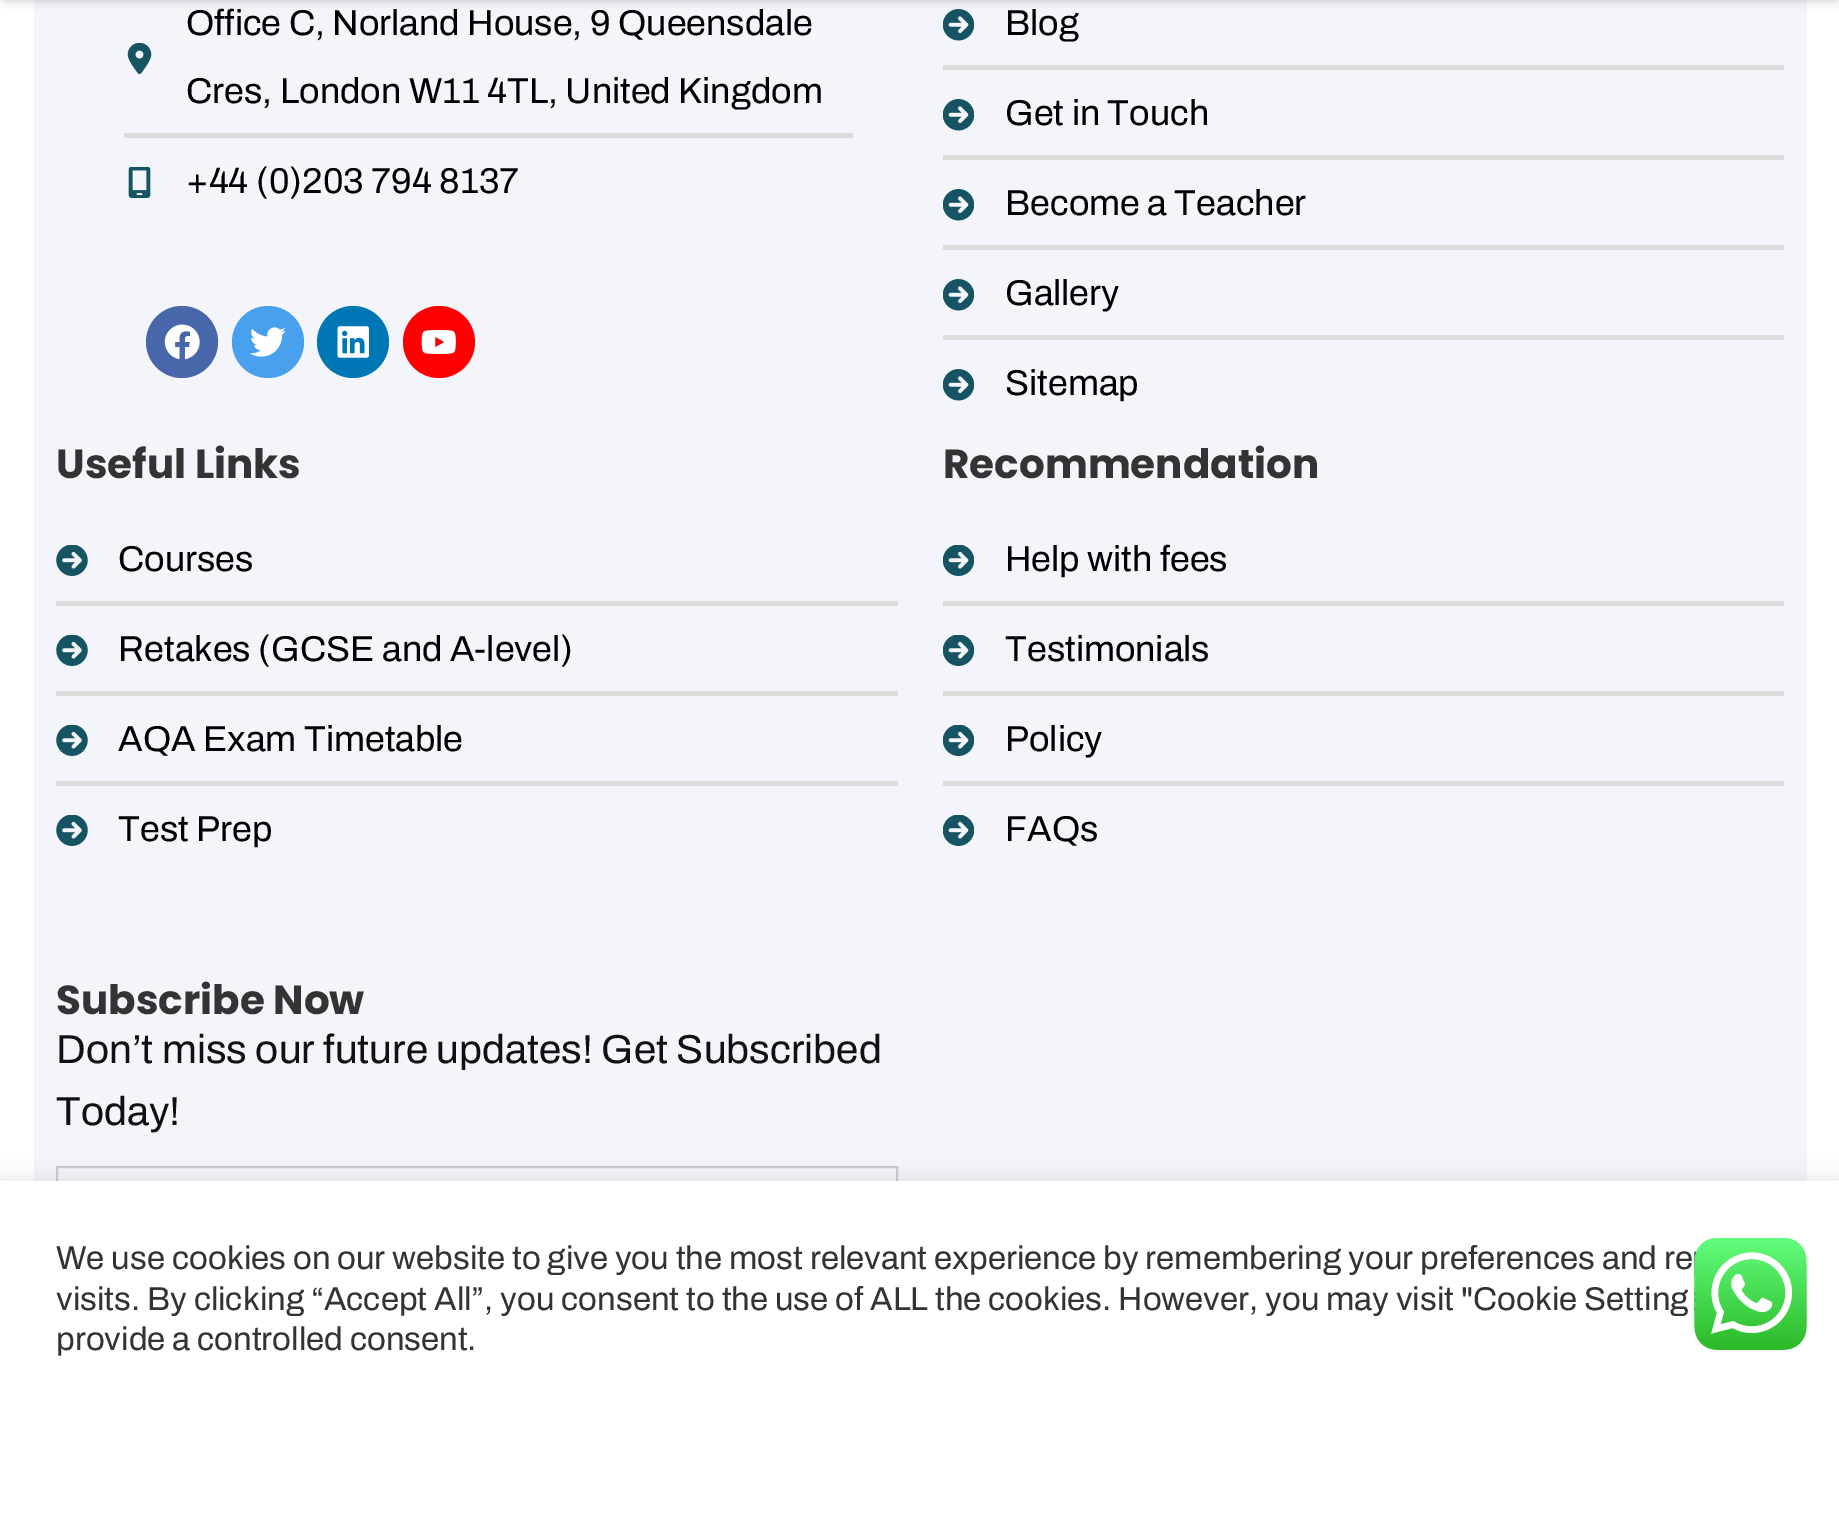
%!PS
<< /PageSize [1839 1528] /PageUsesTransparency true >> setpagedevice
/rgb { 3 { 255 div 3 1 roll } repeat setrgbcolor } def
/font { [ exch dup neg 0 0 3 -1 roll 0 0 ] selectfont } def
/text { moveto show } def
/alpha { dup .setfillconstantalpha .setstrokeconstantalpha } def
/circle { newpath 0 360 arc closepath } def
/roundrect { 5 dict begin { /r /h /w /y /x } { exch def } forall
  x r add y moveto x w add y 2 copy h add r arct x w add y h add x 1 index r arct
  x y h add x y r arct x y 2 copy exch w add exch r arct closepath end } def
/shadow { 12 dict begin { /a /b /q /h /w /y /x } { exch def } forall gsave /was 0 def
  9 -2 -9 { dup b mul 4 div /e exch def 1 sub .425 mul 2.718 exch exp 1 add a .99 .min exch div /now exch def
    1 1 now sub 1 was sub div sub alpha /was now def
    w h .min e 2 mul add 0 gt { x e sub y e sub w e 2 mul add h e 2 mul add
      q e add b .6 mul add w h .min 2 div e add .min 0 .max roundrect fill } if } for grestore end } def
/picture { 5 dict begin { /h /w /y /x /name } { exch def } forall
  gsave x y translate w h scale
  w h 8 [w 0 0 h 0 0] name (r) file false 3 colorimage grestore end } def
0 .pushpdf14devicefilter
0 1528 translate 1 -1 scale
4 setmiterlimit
255 255 255 rgb
0 0 1839 1528 rectfill
243 245 251 rgb
34 0 1773 1181 rectfill
(img_07.rgb) 943 9 31 32 picture
42 42 42 rgb
5 -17 1831 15 0 5.5 0.4 shadow
(img_01.rgb) 127 43 25 31 picture
221 219 219 rgb
124 133 729 5 rectfill
(img_02.rgb) 128 167 23 31 picture
72 103 170 rgb
182 342 36 circle fill
(img_03.rgb) 164 324 36 36 picture
73 160 237 rgb
268 342 36 circle fill
(img_04.rgb) 250 327 36 30 picture
0 119 181 rgb
353 342 36 circle fill
(img_05.rgb) 337 326 32 32 picture
254 0 0 rgb
439 342 36 circle fill
(img_06.rgb) 421 330 35 24 picture
221 221 221 rgb
943 65 841 5 rectfill
(img_07.rgb) 943 99 31 32 picture
943 155 841 5 rectfill
(img_07.rgb) 943 189 31 32 picture
943 245 841 5 rectfill
(img_07.rgb) 943 279 31 32 picture
943 335 841 5 rectfill
(img_07.rgb) 943 369 31 32 picture
(img_08.rgb) 56 545 32 31 picture
56 601 842 5 rectfill
(img_08.rgb) 56 635 32 31 picture
56 691 842 5 rectfill
(img_08.rgb) 56 725 32 31 picture
56 781 842 5 rectfill
(img_08.rgb) 56 815 32 31 picture
(img_09.rgb) 943 545 31 31 picture
943 601 841 5 rectfill
(img_09.rgb) 943 635 31 31 picture
943 691 841 5 rectfill
(img_09.rgb) 943 725 31 31 picture
943 781 841 5 rectfill
(img_09.rgb) 943 815 31 31 picture
201 201 201 rgb
2 setlinewidth
57 1167 840 88 rectstroke
172 171 171 rgb
0 1179 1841 349 0 11 0.3 shadow
255 255 255 rgb
0 1181 1839 347 rectfill
(img_10.rgb) 1694 1238 113 112 picture
/Archivo-Regular 36 font
0 0 0 rgb
(Office C, Norland House, 9 Queensdale) 186 35 text
(Cres, London W11 4TL, United Kingdom) 186 103 text
(+44 \(0\)203 794 8137) 186 193 text
(Blog) 1005 35 text
(Get in Touch) 1005 125 text
(Become a Teacher) 1005 215 text
(Gallery) 1005 305 text
(Sitemap) 1005 395 text
/Poppins-Bold 40.5 font
51 51 51 rgb
(Useful Links) 56 478 text
/Archivo-Regular 36 font
0 0 0 rgb
(Courses) 118 571 text
(Retakes \(GCSE and A-level\)) 118 661 text
(AQA Exam Timetable) 118 751 text
(Test Prep) 118 841 text
/Poppins-Bold 40.5 font
51 51 51 rgb
(Recommendation) 943 478 text
/Archivo-Regular 36 font
0 0 0 rgb
(Help with fees) 1005 571 text
(Testimonials) 1005 661 text
(Policy) 1005 751 text
(FAQs) 1005 841 text
/Poppins-Bold 40.5 font
51 51 51 rgb
(Subscribe Now) 56 1014 text
/Archivo-Regular 40.5 font
17 17 17 rgb
(Don’t miss our future updates! Get Subscribed) 56 1063 text
(Today!) 56 1125 text
/Archivo-Regular 33 font
51 51 51 rgb
(We use cookies on our website to give you the most relevant experience by remembering your preferences and re) 56 1269 text
(visits. By clicking “Accept All”, you consent to the use of ALL the cookies. However, you may visit "Cookie Setting) 56 1310 text
(provide a controlled consent.) 56 1350 text
.poppdf14devicefilter showpage
